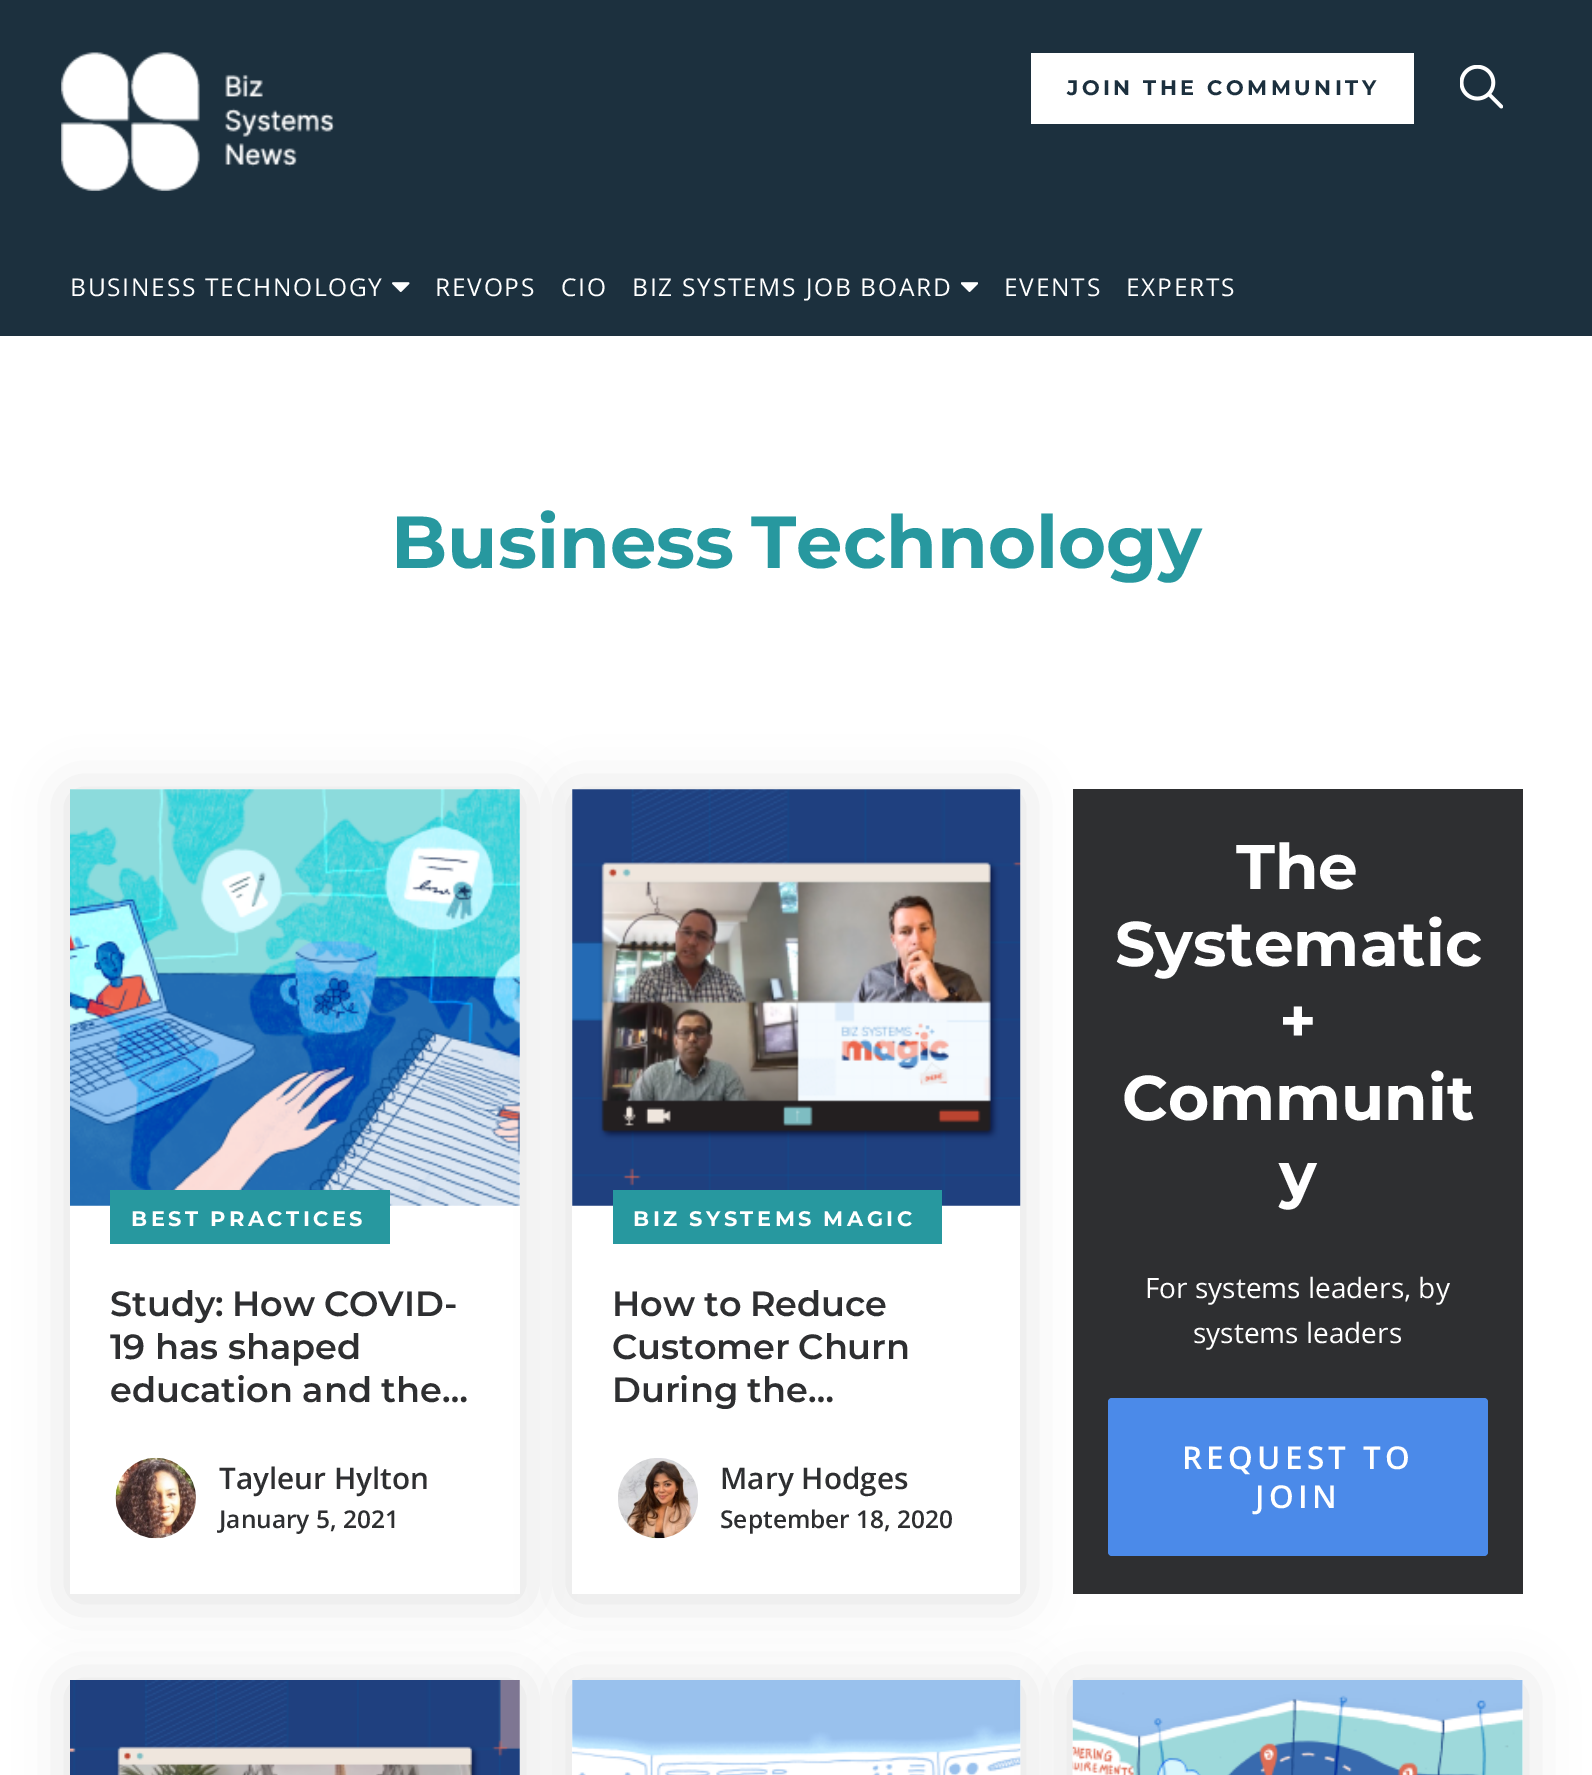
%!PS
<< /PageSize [1592 1775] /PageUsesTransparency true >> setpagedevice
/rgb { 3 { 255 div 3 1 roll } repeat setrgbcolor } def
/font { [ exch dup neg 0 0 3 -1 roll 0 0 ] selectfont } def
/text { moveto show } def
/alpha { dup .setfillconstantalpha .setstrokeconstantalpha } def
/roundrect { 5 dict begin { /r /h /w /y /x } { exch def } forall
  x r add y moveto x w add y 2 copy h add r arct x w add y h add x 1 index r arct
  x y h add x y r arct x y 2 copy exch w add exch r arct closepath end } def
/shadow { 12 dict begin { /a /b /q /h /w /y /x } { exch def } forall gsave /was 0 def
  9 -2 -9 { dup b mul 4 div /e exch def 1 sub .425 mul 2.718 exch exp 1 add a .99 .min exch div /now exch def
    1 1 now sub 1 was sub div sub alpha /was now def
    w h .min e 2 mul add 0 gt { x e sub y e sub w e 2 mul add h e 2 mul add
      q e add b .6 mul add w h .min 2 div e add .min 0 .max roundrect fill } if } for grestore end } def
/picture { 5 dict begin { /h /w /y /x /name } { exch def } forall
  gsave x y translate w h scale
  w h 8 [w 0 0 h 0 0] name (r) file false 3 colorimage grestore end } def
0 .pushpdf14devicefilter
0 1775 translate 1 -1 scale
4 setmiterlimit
255 255 255 rgb
0 0 1592 1775 rectfill
28 48 62 rgb
0 0 1592 336 rectfill
(img_01.rgb) 61 52 274 139 picture
255 255 255 rgb
1031 53 383 71 rectfill
(img_02.rgb) 1460 65 43 44 picture
(img_03.rgb) 392 282 18 10 picture
(img_04.rgb) 961 282 17 10 picture
0 0 0 rgb
70 793 450 805 0 26 0.12 shadow
255 255 255 rgb
70 789 450 805 rectfill
(img_05.rgb) 70 789 450 417 picture
39 152 159 rgb
110 1190 280 54 rectfill
(img_06.rgb) 115 1457 81 82 picture
0 0 0 rgb
572 793 448 805 0 26 0.12 shadow
255 255 255 rgb
572 789 448 805 rectfill
(img_07.rgb) 572 789 449 417 picture
39 152 159 rgb
613 1190 329 54 rectfill
(img_08.rgb) 618 1458 80 81 picture
46 47 49 rgb
1073 789 450 805 rectfill
75 138 233 rgb
1108 1398 380 158 4 roundrect fill
0 0 0 rgb
70 1684 450 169 0 26 0.12 shadow
(img_09.rgb) 70 1680 450 95 picture
572 1684 448 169 0 26 0.12 shadow
(img_10.rgb) 572 1680 449 95 picture
1073 1684 450 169 0 26 0.12 shadow
255 255 255 rgb
1522 1680 1 95 rectfill
(img_11.rgb) 1072 1680 451 95 picture
/Montserrat-Bold 21 font
28 48 62 rgb
1067 95 moveto 3.5 0 (JOIN THE COMMUNITY) ashow
/OpenSans-Regular 24.5 font
255 255 255 rgb
70 296 moveto 1.75 0 (BUSINESS TECHNOLOGY) ashow
435 296 moveto 1.75 0 (REVOPS) ashow
561 296 moveto 1.75 0 (CIO) ashow
632 296 moveto 1.75 0 (BIZ SYSTEMS JOB BOARD) ashow
1004 296 moveto 1.75 0 (EVENTS) ashow
1126 296 moveto 1.75 0 (EXPERTS) ashow
/Montserrat-Bold 73.5 font
39 152 159 rgb
391 568 moveto -4 0 32 (Business Technology) widthshow
/Montserrat-Bold 21 font
255 255 255 rgb
131 1226 moveto -1 0 32 3.5 0 (BEST PRACTICES) awidthshow
/Montserrat-SemiBold 35 font
46 47 49 rgb
110 1316 moveto -1 0 32 (Study: How COVID-) widthshow
(19 has shaped) 110 1359 text
(education and the…) 110 1402 text
/OpenSans-SemiBold 29.75 font
(Tayleur Hylton) 219 1489 text
/OpenSans-SemiBold 24.5 font
(January 5, 2021) 219 1528 text
/Montserrat-Bold 21 font
255 255 255 rgb
633 1226 moveto -1 0 32 3.5 0 (BIZ SYSTEMS MAGIC) awidthshow
/Montserrat-SemiBold 35 font
46 47 49 rgb
612 1316 moveto -1 0 32 (How to Reduce) widthshow
612 1359 moveto -1 0 32 (Customer Churn) widthshow
(During the…) 612 1402 text
/OpenSans-SemiBold 29.75 font
(Mary Hodges) 720 1489 text
/OpenSans-SemiBold 24.5 font
(September 18, 2020) 720 1528 text
/Montserrat-Bold 63 font
255 255 255 rgb
(The) 1236 889 text
(Systematic) 1115 966 text
(+) 1279 1043 text
(Communit) 1122 1120 text
(y) 1279 1197 text
/OpenSans-Regular 28 font
(For systems leaders, by) 1145 1298 text
(systems leaders) 1193 1343 text
/OpenSans-SemiBold 31.5 font
1182 1469 moveto 4.25 0 (REQUEST TO) ashow
1255 1508 moveto 4.25 0 (JOIN) ashow
.poppdf14devicefilter showpage
